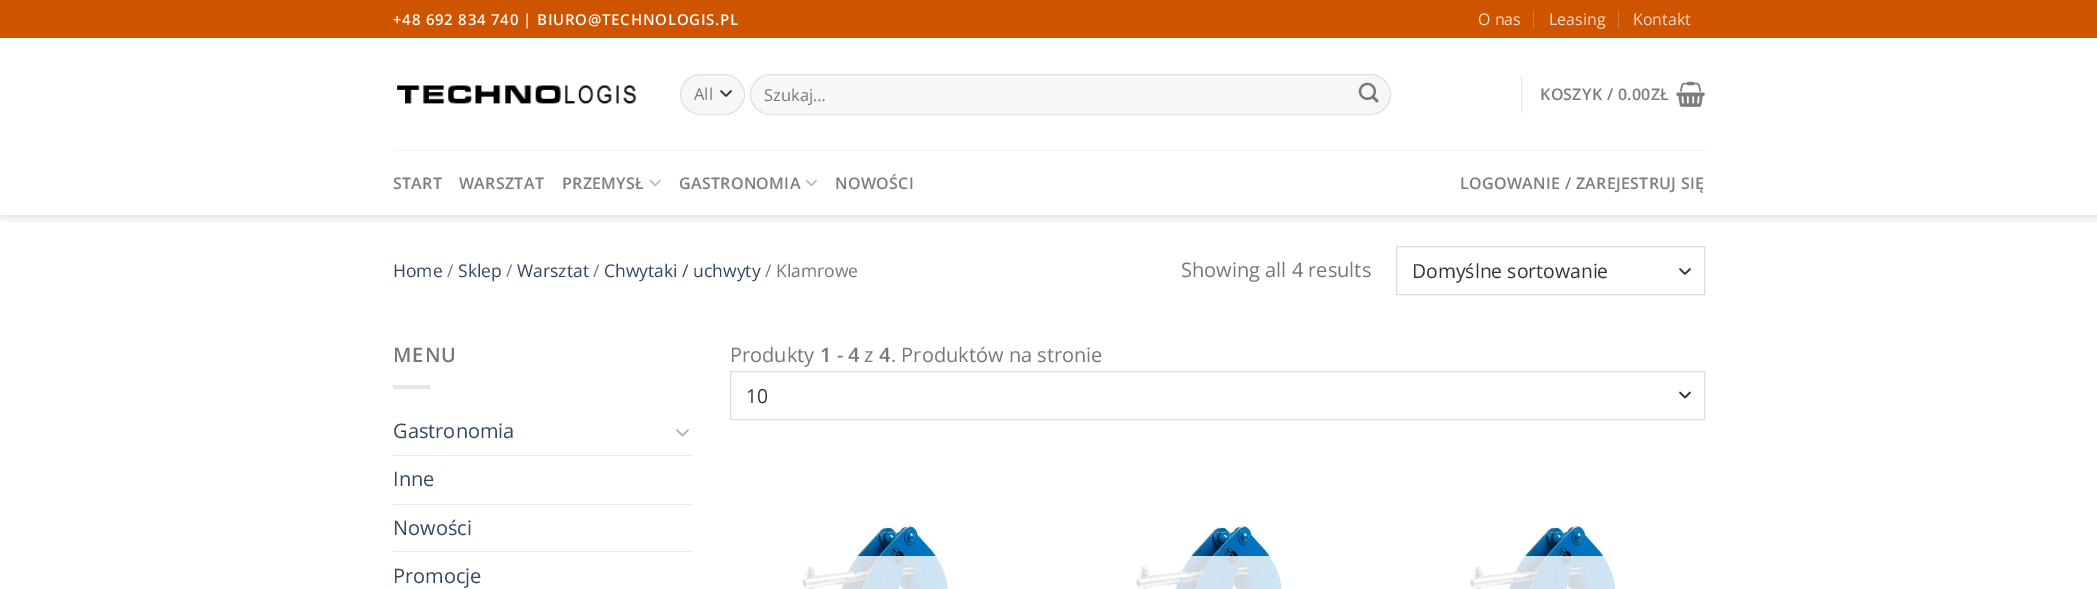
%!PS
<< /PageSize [2097 589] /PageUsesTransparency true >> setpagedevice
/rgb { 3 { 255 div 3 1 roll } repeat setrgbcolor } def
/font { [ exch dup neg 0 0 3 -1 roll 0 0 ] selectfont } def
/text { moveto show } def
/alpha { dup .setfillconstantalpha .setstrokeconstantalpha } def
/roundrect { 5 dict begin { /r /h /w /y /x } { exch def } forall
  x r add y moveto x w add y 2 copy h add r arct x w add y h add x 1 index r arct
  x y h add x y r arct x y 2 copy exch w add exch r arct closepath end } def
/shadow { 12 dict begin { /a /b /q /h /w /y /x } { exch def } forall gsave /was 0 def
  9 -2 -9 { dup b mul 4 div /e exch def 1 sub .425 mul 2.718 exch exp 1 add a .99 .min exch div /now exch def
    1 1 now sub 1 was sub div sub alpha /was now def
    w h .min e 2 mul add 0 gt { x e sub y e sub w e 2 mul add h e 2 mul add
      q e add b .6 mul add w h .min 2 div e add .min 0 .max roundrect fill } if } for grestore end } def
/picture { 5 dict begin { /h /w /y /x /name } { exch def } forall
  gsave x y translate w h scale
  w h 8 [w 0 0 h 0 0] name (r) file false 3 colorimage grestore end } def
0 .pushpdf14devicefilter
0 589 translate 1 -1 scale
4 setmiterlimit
255 255 255 rgb
0 0 2097 589 rectfill
gsave
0 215 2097 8 rectclip
0 0 0 rgb
1 1 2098 215 0 6 0.15 shadow
grestore
206 84 0 rgb
0 0 2097 38 rectfill
216 118 51 rgb
1533 10 1 19 rectfill
1618 10 1 19 rectfill
(img_01.rgb) 397 85 239 19 picture
247 247 247 rgb
680 74 65 41 20.5 roundrect fill
51 51 51 rgb
1.7 setlinewidth
1 setlinecap
1 setlinejoin
721 91 moveto 5 5 rlineto 5 -5 rlineto stroke
0.09 alpha
0 0 0 rgb
1 setlinewidth
0 setlinecap
0 setlinejoin
680.5 74.5 64 40 20 roundrect stroke
1 alpha
247 247 247 rgb
750 74 641 41 20.5 roundrect fill
0.09 alpha
0 0 0 rgb
750.5 74.5 640 40 20 roundrect stroke
1 alpha
(img_02.rgb) 1358 82 21 21 picture
230 230 230 rgb
1521 75 1 38 rectfill
(img_03.rgb) 1676 81 29 26 picture
241 241 241 rgb
393 150 1312 1 rectfill
(img_04.rgb) 649 179 12 8 picture
(img_05.rgb) 806 179 11 8 picture
51 51 51 rgb
1.7 setlinewidth
1 setlinecap
1 setlinejoin
1680 269 moveto 5 5 rlineto 5 -5 rlineto stroke
221 221 221 rgb
1 setlinewidth
0 setlinecap
0 setlinejoin
1396.5 246.5 308 48 rectstroke
230 230 230 rgb
393 385 37 4 rectfill
(img_06.rgb) 676 429 13 8 picture
236 236 236 rgb
393 455 300 1 rectfill
393 504 300 1 rectfill
393 551 300 1 rectfill
51 51 51 rgb
1.7 setlinewidth
1 setlinecap
1 setlinejoin
1680 392.5 moveto 5 5 rlineto 5 -5 rlineto stroke
221 221 221 rgb
1 setlinewidth
0 setlinecap
0 setlinejoin
730.5 371.5 974 48 rectstroke
(img_07.rgb) 801 525 148 64 picture
0.81 alpha
255 255 255 rgb
801 556 148 33 rectfill
1 alpha
(img_08.rgb) 1135 525 148 64 picture
0.81 alpha
1135 556 148 33 rectfill
1 alpha
(img_09.rgb) 1468 525 149 64 picture
0.81 alpha
1468 556 149 33 rectfill
/OpenSans-SemiBold 15 font
1 alpha
393 25 moveto 0.75 0 (+48 692 834 740 | BIURO@TECHNOLOGIS.PL) ashow
/OpenSans-Regular 16 font
245 221 204 rgb
(O nas) 1478 25 text
(Leasing) 1549 25 text
(Kontakt) 1633 25 text
/OpenSans-Regular 16.5 font
119 119 119 rgb
(All) 694 100 text
(Szukaj…) 764 101 text
/OpenSans-SemiBold 16 font
125 125 125 rgb
1540 100 moveto 0.3 0 (KOSZYK / 0.00ZŁ) ashow
393 189 moveto 0.3 0 (START) ashow
459 189 moveto 0.3 0 (WARSZTAT) ashow
562 189 moveto 0.3 0 (PRZEMYSŁ) ashow
679 189 moveto 0.3 0 (GASTRONOMIA) ashow
835 189 moveto 0.3 0 (NOWOŚCI) ashow
1460 189 moveto 0.3 0 (LOGOWANIE / ZAREJESTRUJ SIĘ) ashow
/OpenSans-Regular 17.5 font
51 72 98 rgb
(Home) 393 277 text
119 119 119 rgb
(/) 447 277 text
51 72 98 rgb
(Sklep) 458 277 text
119 119 119 rgb
(/) 506 277 text
51 72 98 rgb
(Warsztat) 517 277 text
119 119 119 rgb
(/) 593 277 text
51 72 98 rgb
(Chwytaki / uchwyty) 604 277 text
119 119 119 rgb
(/ Klamrowe) 765 277 text
/OpenSans-Regular 20 font
(Showing all 4 results) 1181 277 text
/OpenSans-Regular 19.4 font
51 51 51 rgb
(Domyślne sortowanie) 1412 278 text
/OpenSans-SemiBold 20 font
119 119 119 rgb
393 362 moveto 1 0 (MENU) ashow
/OpenSans-Regular 20 font
51 72 98 rgb
(Gastronomia) 393 438 text
(Inne) 393 486 text
(Nowości) 393 535 text
(Promocje) 393 583 text
119 119 119 rgb
(Produkty) 730 362 text
/OpenSans-SemiBold 20 font
(1 - 4) 820 362 text
/OpenSans-Regular 20 font
(z) 864 362 text
/OpenSans-SemiBold 20 font
(4) 879 362 text
/OpenSans-Regular 20 font
(. Produktów na stronie) 891 362 text
/OpenSans-Regular 19.4 font
51 51 51 rgb
(10) 746 403 text
.poppdf14devicefilter showpage
